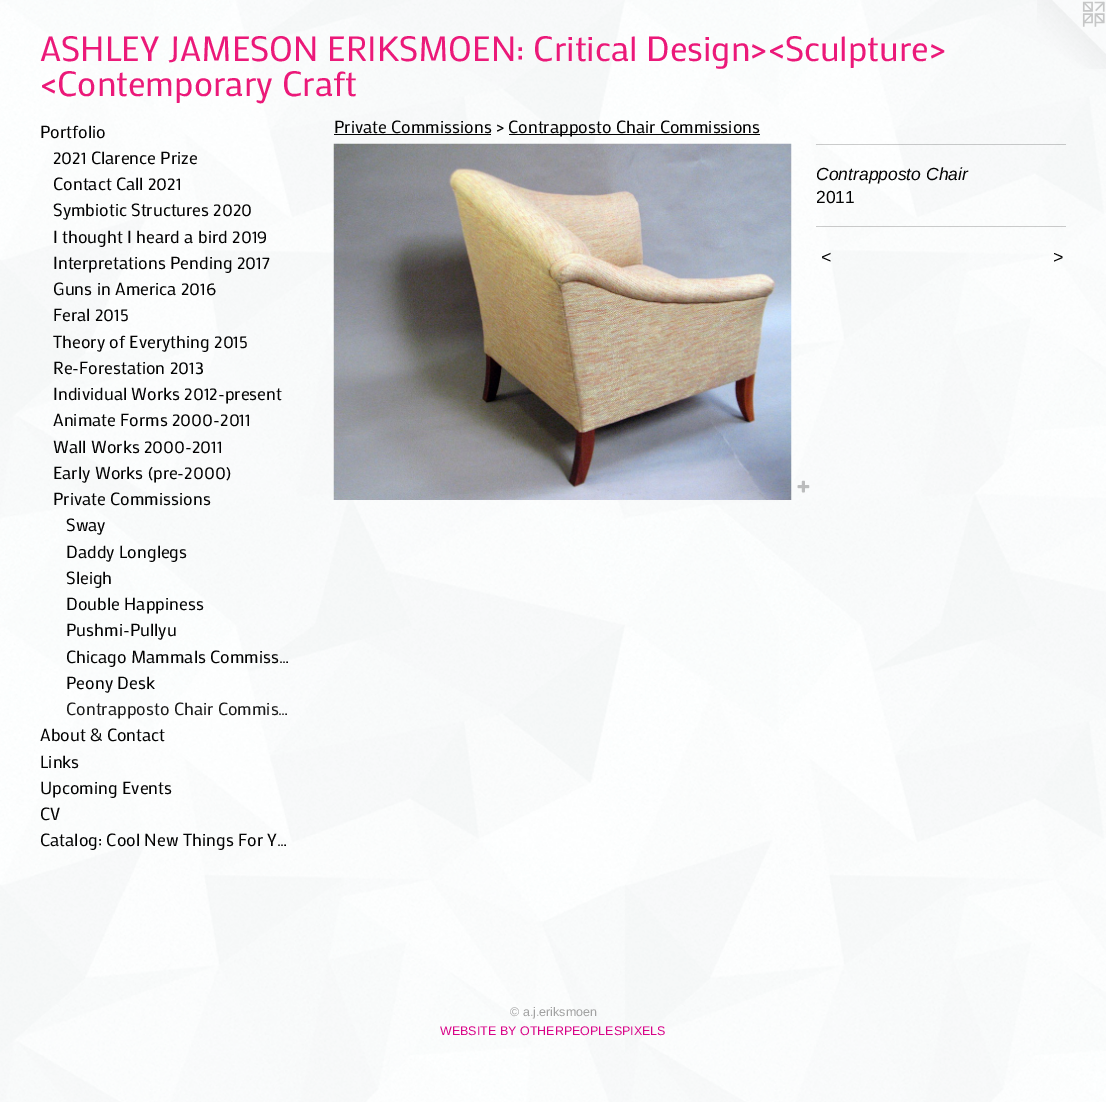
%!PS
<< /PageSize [1106 1102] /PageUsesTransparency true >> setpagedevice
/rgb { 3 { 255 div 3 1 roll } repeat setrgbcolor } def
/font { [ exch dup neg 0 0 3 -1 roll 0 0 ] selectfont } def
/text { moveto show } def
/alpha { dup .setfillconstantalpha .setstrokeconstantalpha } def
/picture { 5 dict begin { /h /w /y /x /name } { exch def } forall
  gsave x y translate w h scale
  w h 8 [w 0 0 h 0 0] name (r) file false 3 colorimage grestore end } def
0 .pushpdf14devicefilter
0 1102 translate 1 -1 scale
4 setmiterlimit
255 255 255 rgb
0 0 1106 1102 rectfill
(img_01.rgb) 0 0 1106 1102 picture
(img_02.rgb) 1037 0 69 69 picture
3 3 3 rgb
334 134 157 1 rectfill
509 134 251 1 rectfill
(img_03.rgb) 333 143 459 357 picture
(img_04.rgb) 797 480 13 13 picture
0.2 alpha
816 144 250 1 rectfill
816 226 250 1 rectfill
/Mako-Regular 35 font
1 alpha
235 25 121 rgb
(ASHLEY JAMESON ERIKSMOEN: Critical Design><Sculpture>) 40 61 text
(<Contemporary Craft) 40 96 text
/Mako-Regular 17.5 font
3 3 3 rgb
(Portfolio) 40 138 text
(2021 Clarence Prize) 53 164 text
(Contact Call 2021) 53 190 text
(Symbiotic Structures 2020) 53 216 text
(I thought I heard a bird 2019) 53 243 text
(Interpretations Pending 2017) 53 269 text
(Guns in America 2016) 53 295 text
(Feral 2015) 53 321 text
(Theory of Everything 2015) 53 348 text
(Re-Forestation 2013) 53 374 text
(Individual Works 2012-present) 53 400 text
(Animate Forms 2000-2011) 53 426 text
(Wall Works 2000-2011) 53 453 text
(Early Works \(pre-2000\)) 53 479 text
(Private Commissions) 53 505 text
(Sway) 66 531 text
(Daddy Longlegs) 66 558 text
(Sleigh) 66 584 text
(Double Happiness) 66 610 text
(Pushmi-Pullyu) 66 636 text
(Chicago Mammals Commiss…) 66 663 text
(Peony Desk) 66 689 text
28 28 28 rgb
(Contrapposto Chair Commis…) 66 715 text
3 3 3 rgb
(About & Contact) 40 741 text
(Links) 40 768 text
(Upcoming Events) 40 794 text
(CV) 40 820 text
(Catalog: Cool New Things For Y…) 40 846 text
(Private Commissions >) 334 133 text
(Contrapposto Chair Commissions) 508 133 text
/LiberationSans-Italic 17.5 font
(Contrapposto Chair) 816 180 text
/LiberationSans-Regular 17.5 font
(2011) 816 203 text
/LiberationSans-Italic 17.5 font
821 263 moveto 1 0 (<) ashow
1053 263 moveto 1 0 (>) ashow
/LiberationSans-Regular 12.5 font
161 161 161 rgb
(© a.j.eriksmoen) 510 1016 text
216 3 135 rgb
(WEBSITE BY OTHERPEOPLESPIXELS) 440 1035 text
.poppdf14devicefilter showpage
